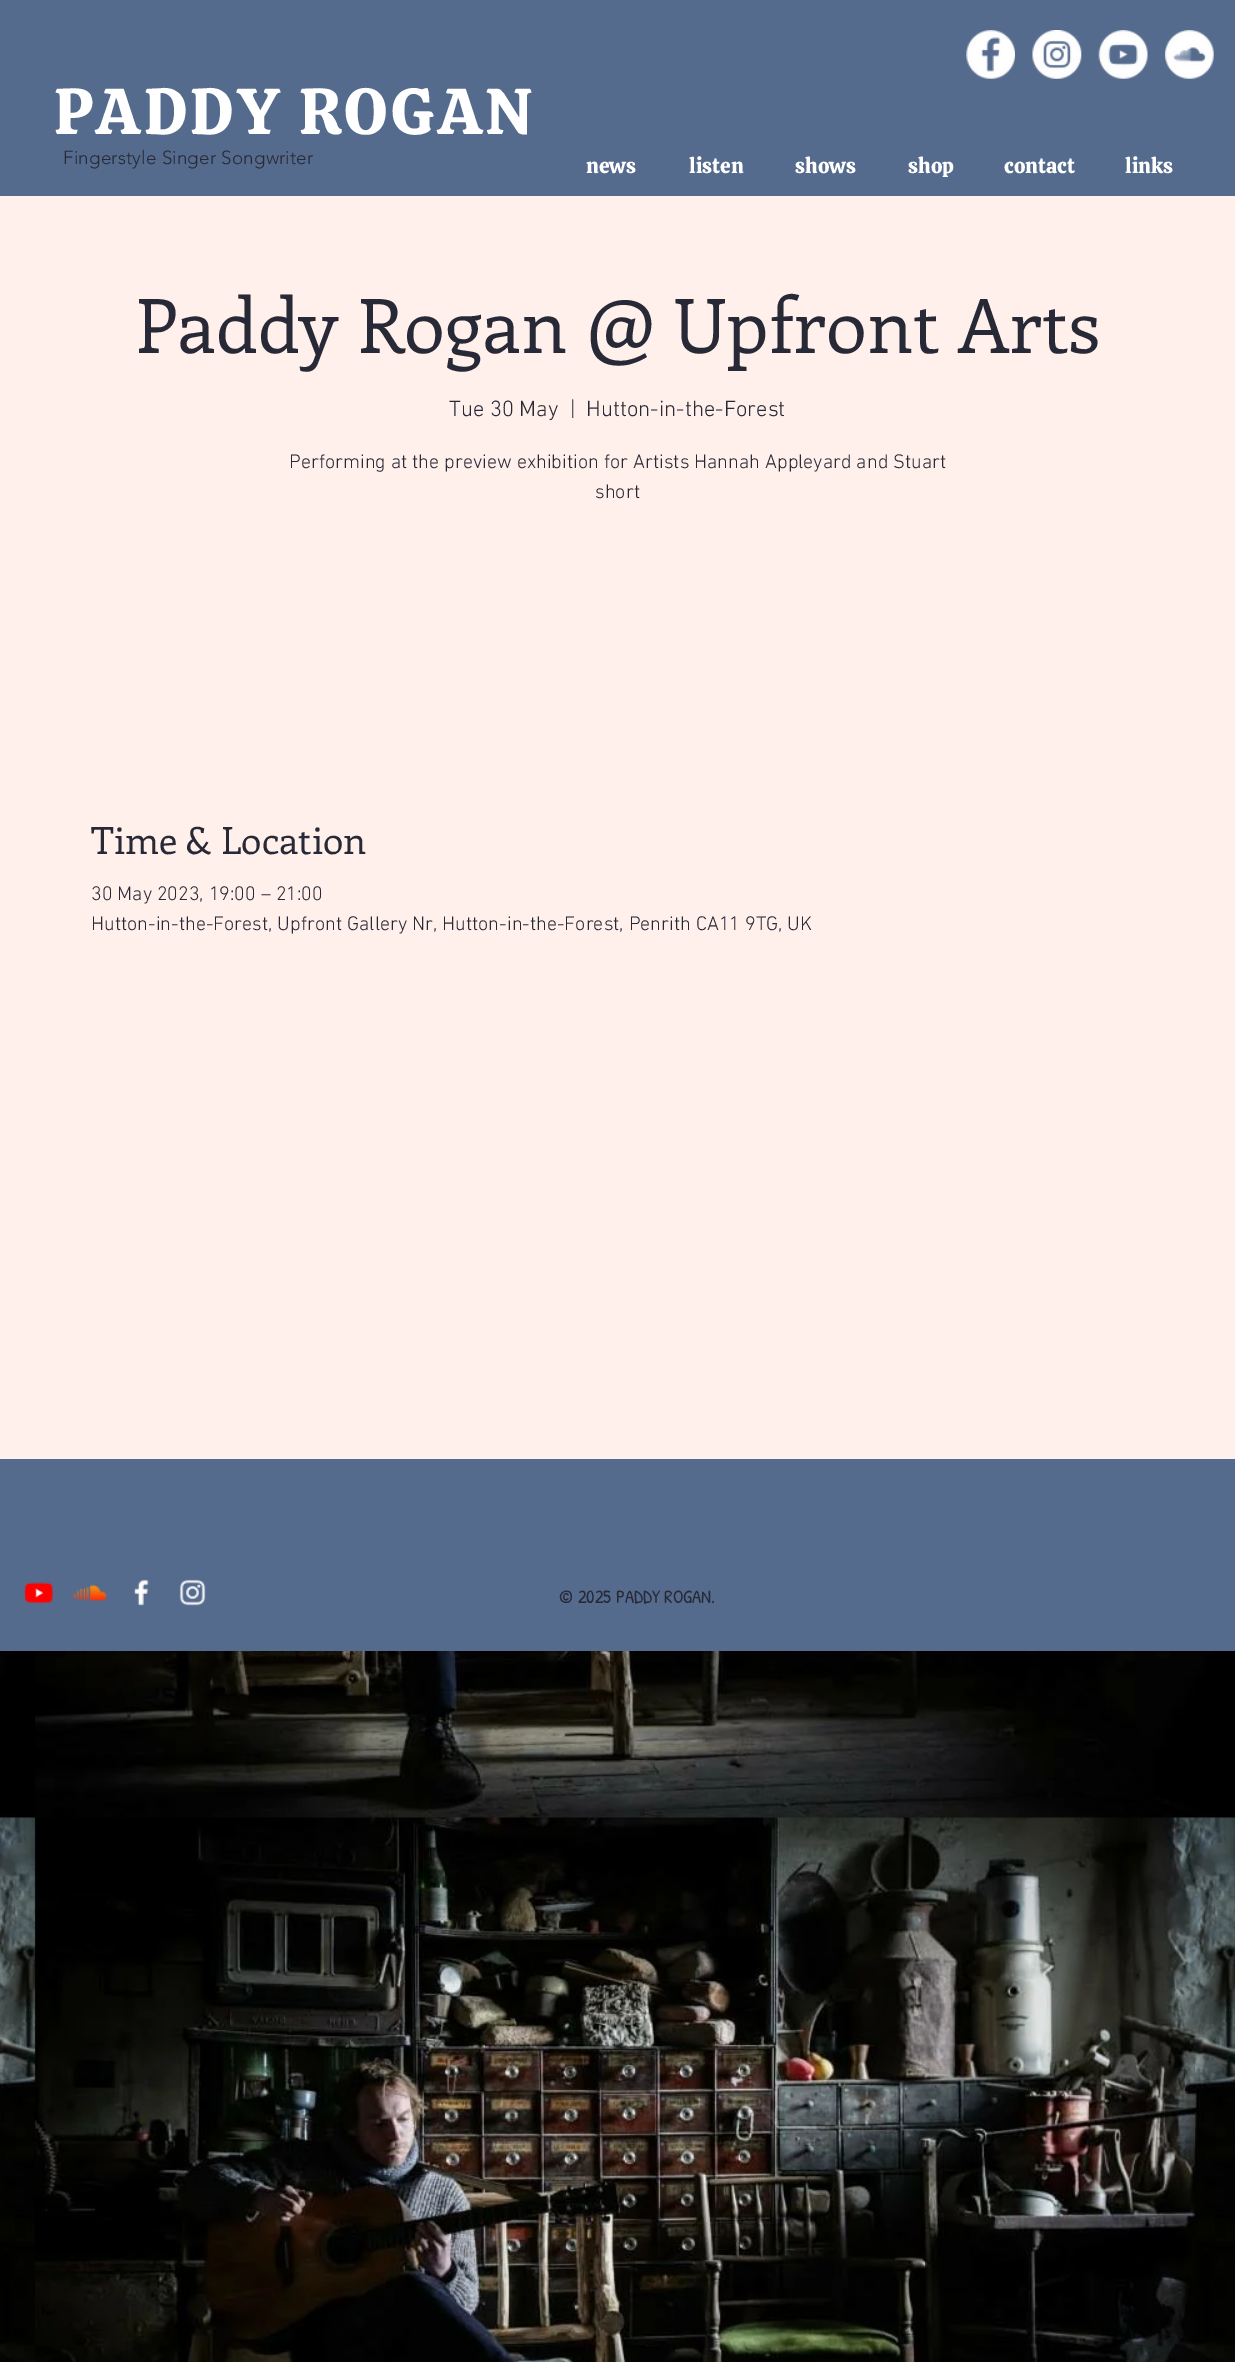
%!PS
<< /PageSize [1235 2362] >> setpagedevice
/rgb { 3 { 255 div 3 1 roll } repeat setrgbcolor } def
/font { [ exch dup neg 0 0 3 -1 roll 0 0 ] selectfont } def
/text { moveto show } def
/picture { 5 dict begin { /h /w /y /x /name } { exch def } forall
  gsave x y translate w h scale
  w h 8 [w 0 0 h 0 0] name (r) file false 3 colorimage grestore end } def
0 2362 translate 1 -1 scale
4 setmiterlimit
255 255 255 rgb
0 0 1235 2362 rectfill
85 107 141 rgb
0 0 1235 196 rectfill
(img_01.rgb) 966 30 49 49 picture
(img_02.rgb) 1032 30 50 49 picture
(img_03.rgb) 1098 30 50 49 picture
(img_04.rgb) 1165 30 49 49 picture
255 240 236 rgb
0 196 1235 1263 rectfill
85 107 141 rgb
0 1459 1235 192 rectfill
(img_05.rgb) 24 1582 30 22 picture
(img_06.rgb) 73 1584 34 18 picture
(img_07.rgb) 133 1579 16 27 picture
(img_08.rgb) 179 1579 27 27 picture
(img_09.rgb) 0 1651 1235 711 picture
/Calistoga-Regular 65 font
255 255 255 rgb
54 134 moveto 3.25 0 (PADDY ROGAN) ashow
/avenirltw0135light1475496-Light 18.75 font
40 41 54 rgb
63 164 moveto 0.2 0 (Fingerstyle Singer Songwriter) ashow
/Calistoga-Regular 21 font
255 255 255 rgb
(news) 586 173 text
(listen) 689 173 text
(shows) 795 173 text
(shop) 908 173 text
(contact) 1004 173 text
(links) 1125 173 text
/Enriqueta-Regular 75 font
40 41 54 rgb
(Paddy Rogan @ Upfront Arts) 135 353 text
/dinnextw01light-Light 22.5 font
(Tue 30 May) 449 416 text
(|) 570 416 text
(Hutton-in-the-Forest) 586 416 text
/dinnextw01light-Light 20 font
(Performing at the preview exhibition for Artists Hannah Appleyard and Stuart) 289 468 text
(short) 595 498 text
/Enriqueta-Regular 37.5 font
(Time & Location) 91 854 text
/dinnextw01light-Light 20 font
(30 May 2023, 19:00 – 21:00) 91 900 text
(Hutton-in-the-Forest, Upfront Gallery Nr, Hutton-in-the-Forest, Penrith CA11 9TG, UK) 91 930 text
/PatrickHand-Regular 18.75 font
(© 2025 PADDY ROGAN.) 559 1603 text
showpage
